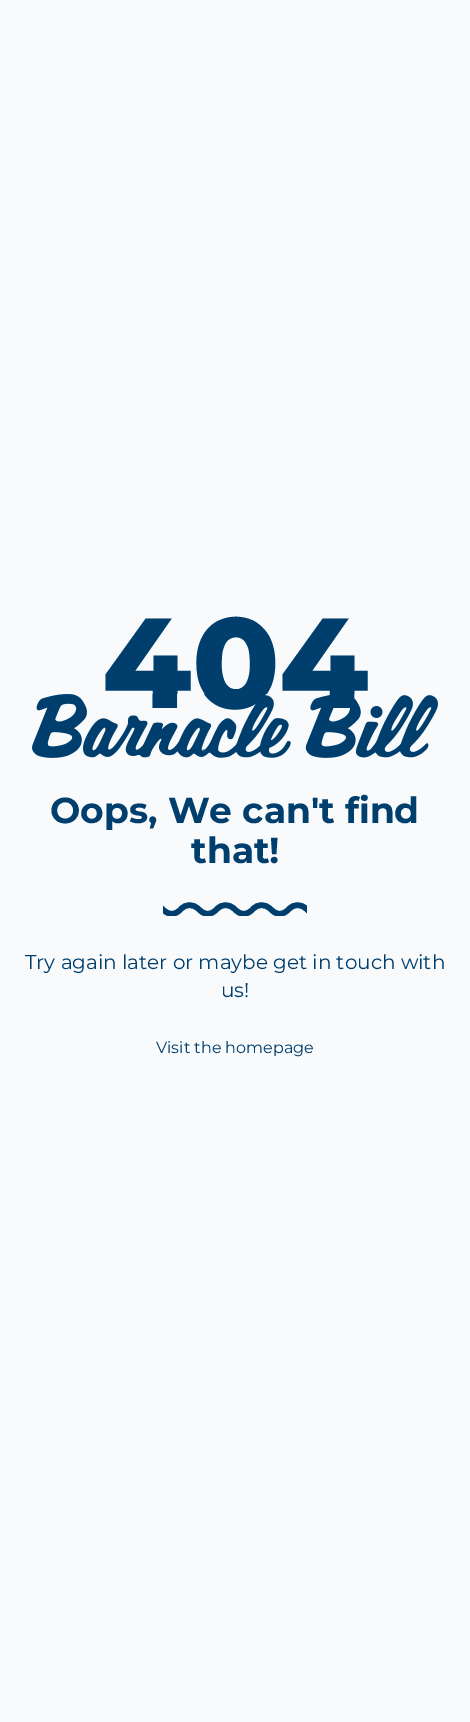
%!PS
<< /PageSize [470 1722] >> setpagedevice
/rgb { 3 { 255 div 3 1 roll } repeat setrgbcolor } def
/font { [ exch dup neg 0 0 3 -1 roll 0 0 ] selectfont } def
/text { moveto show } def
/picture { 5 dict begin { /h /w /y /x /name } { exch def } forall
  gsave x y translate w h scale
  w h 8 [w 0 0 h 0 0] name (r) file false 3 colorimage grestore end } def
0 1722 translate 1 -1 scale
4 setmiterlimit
248 250 252 rgb
0 0 470 1722 rectfill
gsave
163 902 72 14 rectclip
0 62 110 rgb
5.6 setlinewidth
2 setlinecap
1 setlinejoin
235 909.5 moveto -6 -6 -13 -6 -18.5 0 rcurveto -6 6 -11.5 6 -17.5 0 rcurveto -6 -6 -13 -6 -18.5 0 rcurveto -6 6 -11.5 6 -17.5 0 rcurveto -6 -6 -13 -6 -18.5 0 rcurveto -6 6 -11.5 6 -17.5 0 rcurveto -6 -6 -13 -6 -18.5 0 rcurveto -6 6 -11.5 6 -17.5 0 rcurveto stroke
grestore
gsave
235 902 72 14 rectclip
0 62 110 rgb
5.6 setlinewidth
2 setlinecap
1 setlinejoin
379 909.5 moveto -6 -6 -13 -6 -18.5 0 rcurveto -6 6 -11.5 6 -17.5 0 rcurveto -6 -6 -13 -6 -18.5 0 rcurveto -6 6 -11.5 6 -17.5 0 rcurveto -6 -6 -13 -6 -18.5 0 rcurveto -6 6 -11.5 6 -17.5 0 rcurveto -6 -6 -13 -6 -18.5 0 rcurveto -6 6 -11.5 6 -17.5 0 rcurveto stroke
grestore
/Montserrat-ExtraBold 128 font
0 62 110 rgb
(404) 102 708 text
(img_01.rgb) 32 694 406 64 picture
/Montserrat-Bold 36 font
(Oops, We can't find) 50 823 text
(that!) 191 863 text
/Montserrat-Regular 20 font
(Try again later or maybe get in touch with) 25 969 text
(us!) 221 997 text
/Montserrat-Regular 16 font
(Visit the homepage) 156 1053 text
showpage
